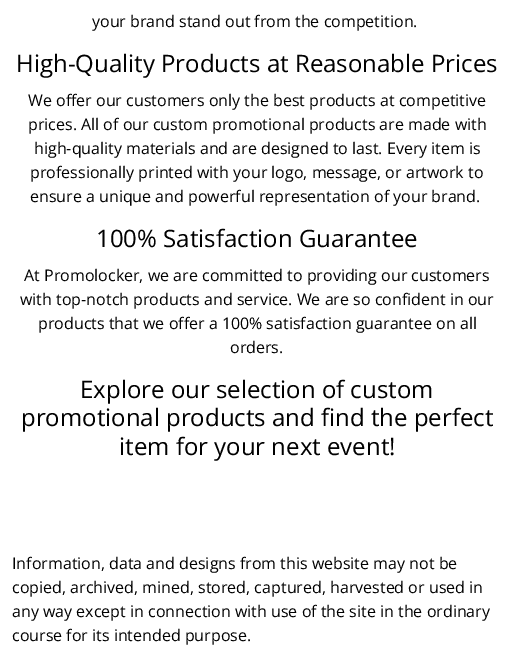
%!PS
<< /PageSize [514 663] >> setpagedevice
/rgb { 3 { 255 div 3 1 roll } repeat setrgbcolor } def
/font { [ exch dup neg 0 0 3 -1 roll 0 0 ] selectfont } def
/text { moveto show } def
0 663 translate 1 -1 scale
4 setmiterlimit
255 255 255 rgb
0 0 514 663 rectfill
/OpenSans-Regular 16 font
0 0 0 rgb
(your brand stand out from the competition.) 92 27 text
/OpenSans-Regular 24 font
(High-Quality Products at Reasonable Prices) 16 72 text
/OpenSans-Regular 16 font
(We offer our customers only the best products at competitive) 28 106 text
(prices. All of our custom promotional products are made with) 28 130 text
(high-quality materials and are designed to last. Every item is) 34 154 text
(professionally printed with your logo, message, or artwork to) 30 178 text
(ensure a unique and powerful representation of your brand.) 30 202 text
/OpenSans-Regular 24 font
(100% Satisfaction Guarantee) 96 247 text
/OpenSans-Regular 16 font
(At Promolocker, we are committed to providing our customers) 24 281 text
(with top-notch products and service. We are so confident in our) 20 305 text
(products that we offer a 100% satisfaction guarantee on all) 38 329 text
(orders.) 230 353 text
/OpenSans-Regular 24 font
(Explore our selection of custom) 80 398 text
(promotional products and find the perfect) 21 426 text
(item for your next event!) 119 455 text
/OpenSans-Regular 16 font
(Information, data and designs from this website may not be) 12 569 text
(copied, archived, mined, stored, captured, harvested or used in) 12 593 text
(any way except in connection with use of the site in the ordinary) 12 617 text
(course for its intended purpose.) 12 641 text
showpage
